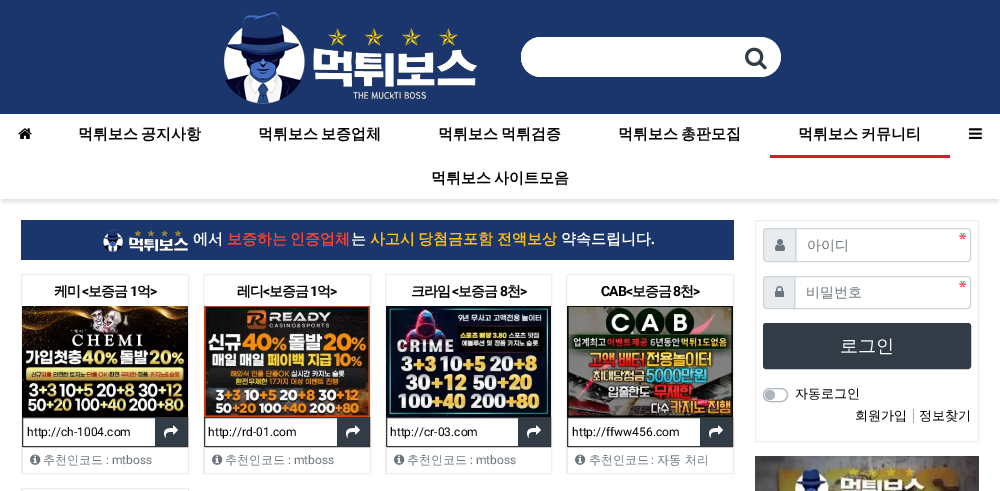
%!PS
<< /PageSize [1000 491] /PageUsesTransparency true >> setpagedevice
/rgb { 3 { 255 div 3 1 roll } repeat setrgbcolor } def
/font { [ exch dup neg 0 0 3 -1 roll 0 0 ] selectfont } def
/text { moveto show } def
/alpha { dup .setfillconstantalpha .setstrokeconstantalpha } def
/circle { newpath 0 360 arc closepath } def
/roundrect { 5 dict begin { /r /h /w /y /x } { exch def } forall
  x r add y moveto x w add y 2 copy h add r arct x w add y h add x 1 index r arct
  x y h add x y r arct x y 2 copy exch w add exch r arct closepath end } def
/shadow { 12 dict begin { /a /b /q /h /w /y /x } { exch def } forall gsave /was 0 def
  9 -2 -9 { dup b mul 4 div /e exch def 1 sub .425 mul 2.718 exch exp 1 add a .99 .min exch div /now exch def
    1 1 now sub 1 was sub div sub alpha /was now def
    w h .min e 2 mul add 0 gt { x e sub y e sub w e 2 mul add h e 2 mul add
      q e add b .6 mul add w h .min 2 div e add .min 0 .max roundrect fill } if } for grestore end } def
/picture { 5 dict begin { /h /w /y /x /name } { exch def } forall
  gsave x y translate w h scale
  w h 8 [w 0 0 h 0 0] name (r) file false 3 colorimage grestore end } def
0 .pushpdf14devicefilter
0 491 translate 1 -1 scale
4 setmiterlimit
255 255 255 rgb
0 0 1000 491 rectfill
27 54 109 rgb
0 0 1000 114 rectfill
(img_01.rgb) 223 12 254 92 picture
255 255 255 rgb
521 37 260 40 20 roundrect fill
541 37 moveto 191 0 rlineto 0 40 rlineto -191 0 rlineto -11 0 -20 -9 -20 -20 rcurveto 0 -11 9 -20 20 -20 rcurveto closepath fill
(img_02.rgb) 745 47 22 23 picture
gsave
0 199 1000 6 rectclip
50 60 70 rgb
2 121 996 81 0 2.5 0.15 shadow
grestore
(img_03.rgb) 18 128 14 11 picture
211 31 39 rgb
770 155 180 3 rectfill
(img_04.rgb) 969 128 13 11 picture
27 54 109 rgb
21 220 713 40 rectfill
(img_05.rgb) 103 229 86 23 picture
238 238 238 rgb
21.5 274.5 167 199 rectstroke
(img_06.rgb) 22 306 166 111 picture
53 53 53 rgb
22.5 417.5 165 29 rectstroke
50 60 70 rgb
155 418 32 28 rectfill
(img_07.rgb) 164 425 14 13 picture
233 233 233 rgb
22 447 1 26 rectfill
(img_08.rgb) 30 454 11 11 picture
238 238 238 rgb
203.5 274.5 167 199 rectstroke
(img_09.rgb) 204 306 166 111 picture
53 53 53 rgb
204.5 417.5 165 29 rectstroke
50 60 70 rgb
337 418 32 28 rectfill
(img_07.rgb) 346 425 14 13 picture
233 233 233 rgb
204 447 1 26 rectfill
(img_08.rgb) 212 454 11 11 picture
238 238 238 rgb
385.5 274.5 166 199 rectstroke
(img_10.rgb) 386 306 165 111 picture
53 53 53 rgb
386.5 417.5 164 29 rectstroke
50 60 70 rgb
518 418 32 28 rectfill
(img_07.rgb) 527 425 14 13 picture
233 233 233 rgb
386 447 1 26 rectfill
(img_08.rgb) 394 454 11 11 picture
238 238 238 rgb
566.5 274.5 167 199 rectstroke
(img_11.rgb) 567 306 166 111 picture
53 53 53 rgb
567.5 417.5 165 29 rectstroke
50 60 70 rgb
700 418 32 28 rectfill
(img_07.rgb) 709 425 14 13 picture
233 233 233 rgb
567 447 1 26 rectfill
(img_08.rgb) 575 454 11 11 picture
238 238 238 rgb
21.5 488.5 167 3 rectstroke
755.5 220.5 223 221 rectstroke
233 236 239 rgb
767 228.5 moveto 28.5 0 rlineto 0 33 rlineto -28.5 0 rlineto -2 0 -3.5 -1.5 -3.5 -3.5 rcurveto 0 -26 rlineto 0 -2 1.5 -3.5 3.5 -3.5 rcurveto closepath gsave fill grestore
206 212 218 rgb
stroke
(img_12.rgb) 775 239 10 12 picture
(img_13.rgb) 959 233 7 7 picture
795.5 228.5 moveto 171.5 0 rlineto 2 0 3.5 1.5 3.5 3.5 rcurveto 0 26 rlineto 0 2 -1.5 3.5 -3.5 3.5 rcurveto -171.5 0 rlineto closepath stroke
233 236 239 rgb
767 276.5 moveto 27.5 0 rlineto 0 32 rlineto -27.5 0 rlineto -2 0 -3.5 -1.5 -3.5 -3.5 rcurveto 0 -25 rlineto 0 -2 1.5 -3.5 3.5 -3.5 rcurveto closepath gsave fill grestore
206 212 218 rgb
stroke
(img_14.rgb) 775 286 9 11 picture
(img_13.rgb) 959 281 7 7 picture
794.5 276.5 moveto 172.5 0 rlineto 2 0 3.5 1.5 3.5 3.5 rcurveto 0 25 rlineto 0 2 -1.5 3.5 -3.5 3.5 rcurveto -172.5 0 rlineto closepath stroke
50 60 70 rgb
763.5 323.5 207 45 2.5 roundrect gsave fill grestore
stroke
173 181 189 rgb
763.5 388.5 24 13 6.5 roundrect stroke
770 395 5 circle fill
170 170 170 rgb
913 409 1 14 rectfill
(img_15.rgb) 755 456 224 35 picture
/WenQuanYiZenHei-Bold 15 font
0 0 0 rgb
78 139 moveto -1 0 32 (먹튀보스 공지사항) widthshow
258 139 moveto -1 0 32 (먹튀보스 보증업체) widthshow
438 139 moveto -1 0 32 (먹튀보스 먹튀검증) widthshow
618 139 moveto -1 0 32 (먹튀보스 총판모집) widthshow
798 139 moveto -1 0 32 (먹튀보스 커뮤니티) widthshow
431 183 moveto -1 0 32 (먹튀보스 사이트모음) widthshow
255 255 255 rgb
(에서) 193 244 text
244 67 54 rgb
227 244 moveto -1 0 32 (보증하는 인증업체) widthshow
255 255 255 rgb
(는) 351 244 text
255 193 7 rgb
370 244 moveto -1 0 32 (사고시 당첨금포함 전액보상) widthshow
255 255 255 rgb
(약속드립니다) 561 244 text
/LiberationSerif-Bold 15 font
(.) 651 244 text
/WenQuanYiZenHei-Bold 14 font
0 0 0 rgb
54 296 moveto -1 0 (케미) ashow
/Roboto-Bold 14 font
82 296 moveto -1 0 (<) ashow
/WenQuanYiZenHei-Bold 14 font
88 296 moveto -1 0 (보증금) ashow
/Roboto-Bold 14 font
130 296 moveto -1 0 (1) ashow
/WenQuanYiZenHei-Bold 14 font
137 296 moveto -1 0 (억) ashow
/Roboto-Bold 14 font
150 296 moveto -1 0 (>) ashow
/Roboto-Regular 12 font
(http://ch-1004.com) 27 436 text
/WenQuanYiZenHei-Medium 12 font
108 117 125 rgb
(추천인코드) 43 464 text
/Roboto-Regular 12 font
(: mtboss) 106 464 text
/WenQuanYiZenHei-Bold 14 font
0 0 0 rgb
237 296 moveto -1 0 (레디) ashow
/Roboto-Bold 14 font
263 296 moveto -1 0 (<) ashow
/WenQuanYiZenHei-Bold 14 font
269 296 moveto -1 0 (보증금) ashow
/Roboto-Bold 14 font
310 296 moveto -1 0 (1) ashow
/WenQuanYiZenHei-Bold 14 font
317 296 moveto -1 0 (억) ashow
/Roboto-Bold 14 font
330 296 moveto -1 0 (>) ashow
/Roboto-Regular 12 font
(http://rd-01.com) 208 436 text
/WenQuanYiZenHei-Medium 12 font
108 117 125 rgb
(추천인코드) 225 464 text
/Roboto-Regular 12 font
(: mtboss) 288 464 text
/WenQuanYiZenHei-Bold 14 font
0 0 0 rgb
411 296 moveto -1 0 (크라임) ashow
/Roboto-Bold 14 font
452 296 moveto -1 0 (<) ashow
/WenQuanYiZenHei-Bold 14 font
458 296 moveto -1 0 (보증금) ashow
/Roboto-Bold 14 font
500 296 moveto -1 0 (8) ashow
/WenQuanYiZenHei-Bold 14 font
507 296 moveto -1 0 (천) ashow
/Roboto-Bold 14 font
520 296 moveto -1 0 (>) ashow
/Roboto-Regular 12 font
(http://cr-03.com) 390 436 text
/WenQuanYiZenHei-Medium 12 font
108 117 125 rgb
(추천인코드) 407 464 text
/Roboto-Regular 12 font
(: mtboss) 470 464 text
/Roboto-Bold 14 font
0 0 0 rgb
601 296 moveto -1 0 (CAB<) ashow
/WenQuanYiZenHei-Bold 14 font
632 296 moveto -1 0 (보증금) ashow
/Roboto-Bold 14 font
673 296 moveto -1 0 (8) ashow
/WenQuanYiZenHei-Bold 14 font
680 296 moveto -1 0 (천) ashow
/Roboto-Bold 14 font
693 296 moveto -1 0 (>) ashow
/Roboto-Regular 12 font
(http://ffww456.com) 572 436 text
/WenQuanYiZenHei-Medium 12 font
108 117 125 rgb
(추천인코드) 589 464 text
/Roboto-Regular 12 font
(:) 651 464 text
/WenQuanYiZenHei-Medium 12 font
(자동 처리) 657 464 text
/WenQuanYiZenHei-Medium 14 font
(아이디) 807 250 text
(비밀번호) 806 297 text
/WenQuanYiZenHei-Medium 18 font
255 255 255 rgb
(로그인) 840 352 text
/WenQuanYiZenHei-Medium 13 font
0 0 0 rgb
(자동로그인) 795 398 text
(회원가입) 855 420 text
(정보찾기) 919 420 text
.poppdf14devicefilter showpage
